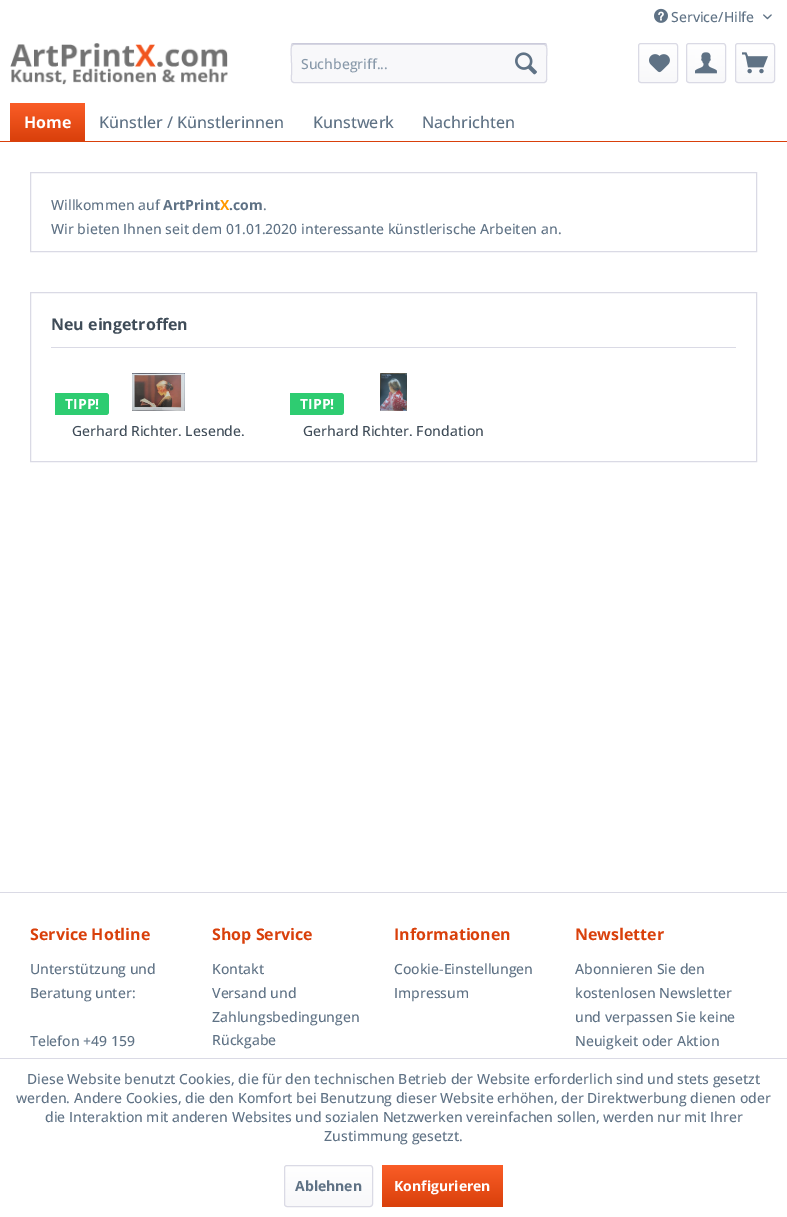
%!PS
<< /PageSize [787 1217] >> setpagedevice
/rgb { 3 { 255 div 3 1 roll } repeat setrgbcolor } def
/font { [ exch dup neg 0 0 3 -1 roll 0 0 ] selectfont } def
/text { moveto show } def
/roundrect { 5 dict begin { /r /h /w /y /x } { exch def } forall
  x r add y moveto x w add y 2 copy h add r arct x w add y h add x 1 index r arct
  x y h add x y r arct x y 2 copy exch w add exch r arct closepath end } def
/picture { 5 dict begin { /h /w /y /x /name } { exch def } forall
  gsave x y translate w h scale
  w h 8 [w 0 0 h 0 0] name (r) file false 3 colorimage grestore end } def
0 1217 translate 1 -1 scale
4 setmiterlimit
255 255 255 rgb
0 0 787 1217 rectfill
(img_01.rgb) 654 8 14 15 picture
(img_02.rgb) 763 14 9 6 picture
(img_03.rgb) 10 43 218 42 picture
248 248 250 rgb
291 43 256 40 3 roundrect fill
218 218 229 rgb
294 45 moveto 250 0 rlineto 1 0 2 1 2 2 rcurveto 0 -1 0 -3 -2 -3 rcurveto -250 0 rlineto -2 0 -2 2 -2 3 rcurveto 0 -1 1 -2 2 -2 rcurveto closepath fill
203 203 219 rgb
292 44 moveto 2 -0.5 rlineto 250 0 rlineto 2 0.5 rlineto stroke
218 218 229 rgb
546 44 moveto 1.5 2 0.5 16 0.5 19 rcurveto 0 11.5 rlineto 0 1.5 1.5 8 -2.5 8 rcurveto -250 0 rlineto -4 0 -2.5 -6.5 -2.5 -8 rcurveto 0 -11.5 rlineto 0 -3 -1 -17 0.5 -19 rcurveto stroke
(img_04.rgb) 515 52 22 23 picture
gsave 639 44 38 38 2 roundrect clip newpath
<< /ShadingType 2 /ColorSpace /DeviceRGB /Coords [658 44 658 82] /Extend [true true] /Function << /FunctionType 2 /Domain [0 1] /C0 [1 1 1] /C1 [0.973 0.973 0.98] /N 1 >> >> shfill grestore
638.5 43.5 39 39 2.5 roundrect stroke
(img_05.rgb) 649 54 21 19 picture
gsave 687 44 38 38 2 roundrect clip newpath
<< /ShadingType 2 /ColorSpace /DeviceRGB /Coords [706 44 706 82] /Extend [true true] /Function << /FunctionType 2 /Domain [0 1] /C0 [1 1 1] /C1 [0.973 0.973 0.98] /N 1 >> >> shfill grestore
686.5 43.5 39 39 2.5 roundrect stroke
(img_06.rgb) 695 52 22 22 picture
gsave 736 44 38 38 2 roundrect clip newpath
<< /ShadingType 2 /ColorSpace /DeviceRGB /Coords [755 44 755 82] /Extend [true true] /Function << /FunctionType 2 /Domain [0 1] /C0 [1 1 1] /C1 [0.973 0.973 0.98] /N 1 >> >> shfill grestore
735.5 43.5 39 39 2.5 roundrect stroke
(img_07.rgb) 742 52 26 22 picture
217 64 11 rgb
0 141 787 1 rectfill
gsave 13 103 moveto 69 0 rlineto 1.5 0 3 1.5 3 3 rcurveto 0 35 rlineto -75 0 rlineto 0 -35 rlineto 0 -1.5 1.5 -3 3 -3 rcurveto closepath clip newpath
<< /ShadingType 2 /ColorSpace /DeviceRGB /Coords [48 103 48 141] /Extend [true true] /Function << /FunctionType 2 /Domain [0 1] /C0 [0.98 0.365 0.153] /C1 [0.851 0.251 0.043] /N 1 >> >> shfill grestore
218 218 229 rgb
30.5 172.5 726 79 rectstroke
30.5 292.5 726 169 rectstroke
51 347 685 1 rectfill
46 204 113 rgb
55 393 moveto 51 0 rlineto 1.5 0 3 1.5 3 3 rcurveto 0 16 rlineto 0 1.5 -1.5 3 -3 3 rcurveto -51 0 rlineto closepath fill
(img_08.rgb) 132 373 53 38 picture
290 393 moveto 51 0 rlineto 1.5 0 3 1.5 3 3 rcurveto 0 16 rlineto 0 1.5 -1.5 3 -3 3 rcurveto -51 0 rlineto closepath fill
(img_09.rgb) 380 373 27 38 picture
218 218 229 rgb
0 892 787 1 rectfill
0 1058 787 1 rectfill
gsave 285 1166 87 40 2 roundrect clip newpath
<< /ShadingType 2 /ColorSpace /DeviceRGB /Coords [329 1166 329 1206] /Extend [true true] /Function << /FunctionType 2 /Domain [0 1] /C0 [1 1 1] /C1 [0.973 0.973 0.98] /N 1 >> >> shfill grestore
284.5 1165.5 88 41 2.5 roundrect stroke
gsave 382 1165 121 42 3 roundrect clip newpath
<< /ShadingType 2 /ColorSpace /DeviceRGB /Coords [443 1165 443 1207] /Extend [true true] /Function << /FunctionType 2 /Domain [0 1] /C0 [0.98 0.365 0.153] /C1 [0.851 0.251 0.043] /N 1 >> >> shfill grestore
/OpenSans-Medium 14 font
95 114 133 rgb
(Service/Hilfe) 671 22 text
135 152 169 rgb
(Suchbegriff...) 301 69 text
/OpenSans-Bold 16 font
255 255 255 rgb
(Home) 24 128 text
/OpenSans-Medium 16 font
95 114 133 rgb
(Künstler / Künstlerinnen) 99 128 text
(Kunstwerk) 313 128 text
(Nachrichten) 422 128 text
/OpenSans-Medium 14 font
(Willkommen auf) 51 210 text
/OpenSans-Bold 14 font
(ArtPrint) 163 210 text
255 153 0 rgb
(X) 220 210 text
95 114 133 rgb
(.com) 229 210 text
/OpenSans-Medium 14 font
(.) 263 210 text
(Wir bieten Ihnen seit dem 01.01.2020 interessante künstlerische Arbeiten an.) 51 234 text
/OpenSans-Bold 16 font
63 76 88 rgb
(Neu eingetroffen) 51 330 text
/OpenSans-Bold 14 font
255 255 255 rgb
(TIPP!) 65 409 text
gsave
56 421 205 15 rectclip
/OpenSans-Medium 14 font
63 76 88 rgb
(Gerhard Richter. Lesende.) 72 436 text
grestore
(TIPP!) 300 409 text
gsave
291 421 205 15 rectclip
/OpenSans-Medium 14 font
63 76 88 rgb
(Gerhard Richter. Fondation) 303 436 text
grestore
/OpenSans-Bold 16 font
217 64 11 rgb
(Service Hotline) 30 940 text
/OpenSans-Medium 14 font
95 114 133 rgb
(Unterstützung und) 30 974 text
(Beratung unter:) 30 998 text
(Telefon +49 159) 30 1046 text
/OpenSans-Bold 16 font
217 64 11 rgb
(Shop Service) 212 940 text
/OpenSans-Medium 14 font
95 114 133 rgb
(Kontakt) 212 974 text
(Versand und) 212 998 text
(Zahlungsbedingungen) 212 1022 text
(Rückgabe) 212 1045 text
/OpenSans-Bold 16 font
217 64 11 rgb
(Informationen) 394 940 text
/OpenSans-Medium 14 font
95 114 133 rgb
(Cookie-Einstellungen) 394 974 text
(Impressum) 394 998 text
/OpenSans-Bold 16 font
217 64 11 rgb
(Newsletter) 575 940 text
/OpenSans-Medium 14 font
95 114 133 rgb
(Abonnieren Sie den) 575 974 text
(kostenlosen Newsletter) 575 998 text
(und verpassen Sie keine) 575 1022 text
(Neuigkeit oder Aktion) 575 1046 text
(Diese Website benutzt Cookies, die für den technischen Betrieb der Website erforderlich sind und stets gesetzt) 27 1084 text
(werden. Andere Cookies, die den Komfort bei Benutzung dieser Website erhöhen, der Direktwerbung dienen oder) 16 1103 text
(die Interaktion mit anderen Websites und sozialen Netzwerken vereinfachen sollen, werden nur mit Ihrer) 45 1122 text
(Zustimmung gesetzt.) 324 1141 text
/OpenSans-Bold 14 font
(Ablehnen) 295 1191 text
255 255 255 rgb
(Konfigurieren) 394 1191 text
showpage
